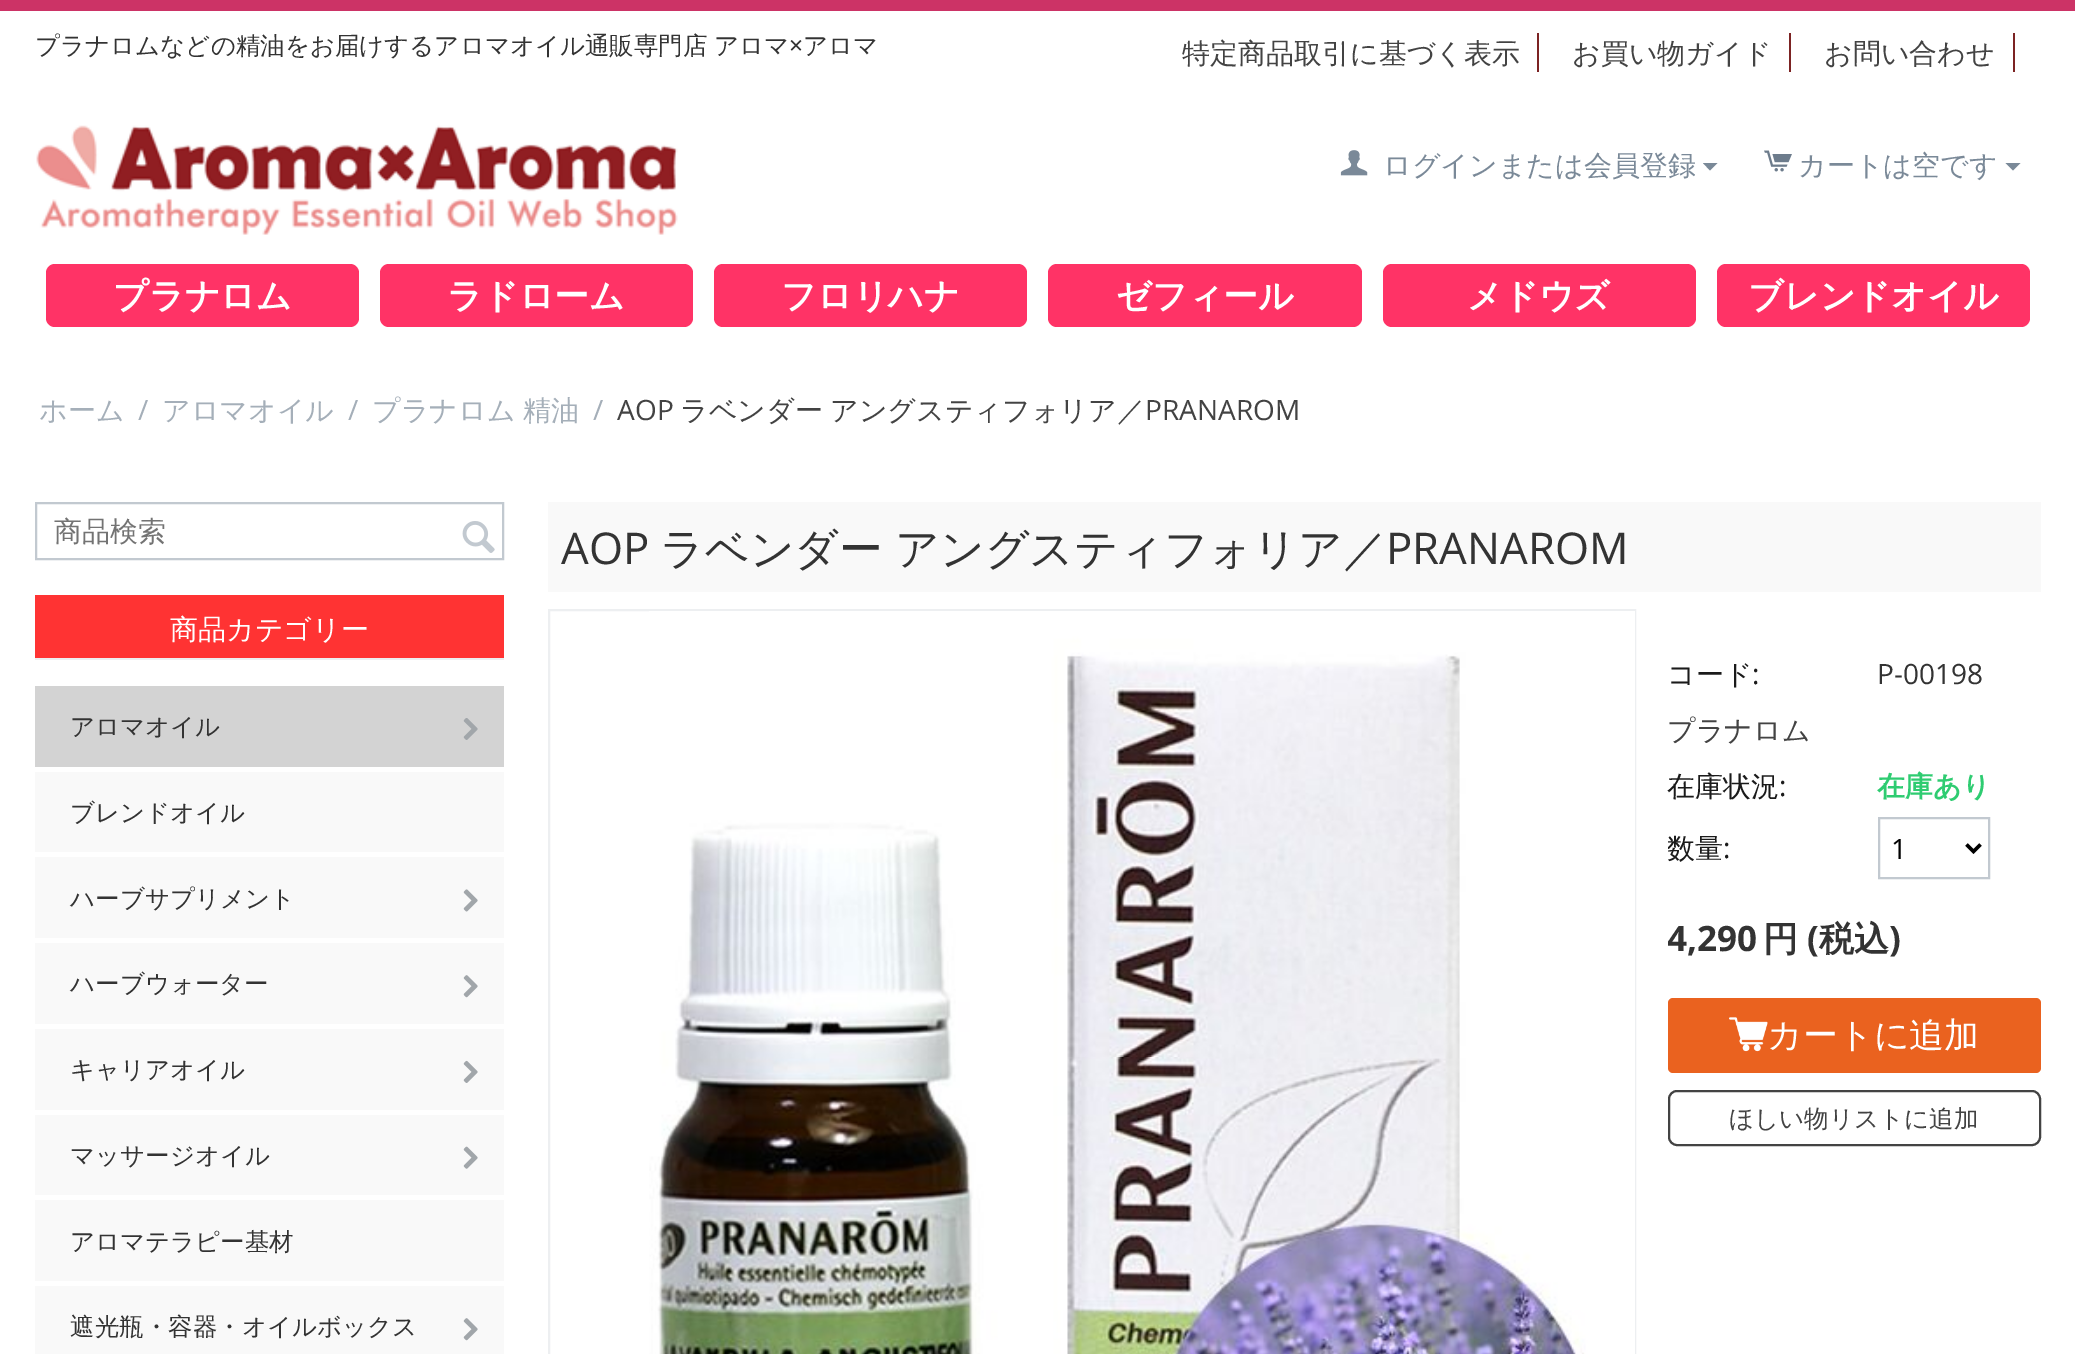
%!PS
<< /PageSize [2075 1354] >> setpagedevice
/rgb { 3 { 255 div 3 1 roll } repeat setrgbcolor } def
/font { [ exch dup neg 0 0 3 -1 roll 0 0 ] selectfont } def
/text { moveto show } def
/roundrect { 5 dict begin { /r /h /w /y /x } { exch def } forall
  x r add y moveto x w add y 2 copy h add r arct x w add y h add x 1 index r arct
  x y h add x y r arct x y 2 copy exch w add exch r arct closepath end } def
/picture { 5 dict begin { /h /w /y /x /name } { exch def } forall
  gsave x y translate w h scale
  w h 8 [w 0 0 h 0 0] name (r) file false 3 colorimage grestore end } def
0 1354 translate 1 -1 scale
4 setmiterlimit
255 255 255 rgb
0 0 2075 1354 rectfill
204 51 102 rgb
0 0 2075 11 rectfill
124 35 35 rgb
1537 33 2 39 rectfill
1789 33 2 39 rectfill
2013 33 2 39 rectfill
(img_01.rgb) 36 125 642 110 picture
(img_02.rgb) 1340 150 28 26 picture
122 137 152 rgb
1710 170.5 moveto -7 -7.5 rlineto 14.5 0 rlineto closepath fill
(img_03.rgb) 1764 150 28 22 picture
2013 170.5 moveto -7.5 -7.5 rlineto 15 0 rlineto closepath fill
255 51 102 rgb
46 264 313 63 9 roundrect fill
380 264 313 63 9 roundrect fill
714 264 313 63 9 roundrect fill
1048 264 314 63 9 roundrect fill
1383 264 313 63 9 roundrect fill
1717 264 313 63 9 roundrect fill
194 201 208 rgb
2 setlinewidth
36 503 467 56 rectstroke
(img_04.rgb) 462 521 33 32 picture
255 51 51 rgb
35 595 469 63 rectfill
237 239 241 rgb
35 658 469 2 rectfill
249 249 249 rgb
35 772 469 582 rectfill
211 211 211 rgb
35 686 469 81 rectfill
(img_05.rgb) 463 718 15 22 picture
255 255 255 rgb
35 852 469 5 rectfill
35 938 469 5 rectfill
(img_06.rgb) 463 889 15 23 picture
35 1024 469 5 rectfill
(img_07.rgb) 463 975 15 23 picture
35 1110 469 5 rectfill
(img_08.rgb) 463 1060 15 23 picture
35 1195 469 5 rectfill
(img_09.rgb) 463 1146 15 23 picture
35 1281 469 5 rectfill
(img_07.rgb) 463 1318 15 23 picture
249 249 249 rgb
548 502 1493 90 rectfill
237 239 241 rgb
549 610 1086 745 rectstroke
(img_10.rgb) 649 611 986 743 picture
194 201 208 rgb
1879 818 110 60 rectstroke
0 0 0 rgb
3.5 setlinewidth
1966.5 844.5 moveto 7 7 rlineto 7 -7 rlineto stroke
234 98 31 rgb
1668 998 373 75 5 roundrect fill
(img_11.rgb) 1729 1017 39 35 picture
67 67 67 rgb
2 setlinewidth
1669 1091 371 54 8 roundrect stroke
/WenQuanYiZenHei-Medium 24.5 font
51 51 51 rgb
(プラナロムなどの精油をお届けするアロマオイル通販専門店) 35 54 text
(アロマ) 714 54 text
/OpenSans-Regular 24.5 font
(×) 789 54 text
/WenQuanYiZenHei-Medium 24.5 font
(アロマ) 803 54 text
/WenQuanYiZenHei-Medium 28 font
67 67 67 rgb
(特定商品取引に基づく表示) 1182 63 text
(お買い物ガイド) 1572 63 text
(お問い合わせ) 1824 63 text
122 137 152 rgb
(ログインまたは会員登録) 1383 175 text
(カートは空です) 1798 175 text
/WenQuanYiZenHei-Bold 35 font
255 255 255 rgb
(プラナロム) 113 308 text
(ラドローム) 447 308 text
(フロリハナ) 781 308 text
(ゼフィール) 1116 308 text
(メドウズ) 1467 308 text
(ブレンドオイル) 1748 308 text
/WenQuanYiZenHei-Medium 28 font
165 175 185 rgb
(ホーム) 39 420 text
/OpenSans-Regular 28 font
(/) 138 420 text
/WenQuanYiZenHei-Medium 28 font
(アロマオイル) 162 420 text
/OpenSans-Regular 28 font
(/) 348 420 text
/WenQuanYiZenHei-Medium 28 font
372 420 moveto -1 0 32 (プラナロム 精油) widthshow
/OpenSans-Regular 28 font
(/) 593 420 text
67 67 67 rgb
(AOP) 617 420 text
/WenQuanYiZenHei-Medium 28 font
680 420 moveto -1 0 32 (ラベンダー アングスティフォリア／) widthshow
/OpenSans-Regular 28 font
(PRANAROM) 1145 420 text
/WenQuanYiZenHei-Medium 28 font
115 115 115 rgb
(商品検索) 54 541 text
255 255 255 rgb
(商品カテゴリー) 170 639 text
/WenQuanYiZenHei-Medium 24.5 font
51 51 51 rgb
(アロマオイル) 70 735 text
(ブレンドオイル) 70 821 text
(ハーブサプリメント) 70 907 text
(ハーブウォーター) 70 992 text
(キャリアオイル) 70 1078 text
(マッサージオイル) 70 1164 text
(アロマテラピー基材) 70 1250 text
(遮光瓶・容器・オイルボックス) 70 1335 text
/OpenSans-Regular 43.75 font
(AOP) 561 564 text
/WenQuanYiZenHei-Medium 43.75 font
660 564 moveto -1 0 32 (ラベンダー アングスティフォリア／) widthshow
/OpenSans-Regular 43.75 font
(PRANAROM) 1386 564 text
/WenQuanYiZenHei-Medium 28 font
26 26 26 rgb
(コード) 1667 684 text
/OpenSans-Regular 28 font
(:) 1752 684 text
51 51 51 rgb
(P-00198) 1877 684 text
/WenQuanYiZenHei-Medium 28 font
67 67 67 rgb
(プラナロム) 1667 740 text
26 26 26 rgb
(在庫状況) 1667 796 text
/OpenSans-Regular 28 font
(:) 1779 796 text
/WenQuanYiZenHei-Bold 28 font
46 204 113 rgb
(在庫あり) 1877 796 text
gsave
1668 609 373 537 rectclip
/WenQuanYiZenHei-Medium 28 font
26 26 26 rgb
(数量) 1667 858 text
grestore
/OpenSans-Regular 28 font
26 26 26 rgb
(:) 1723 858 text
0 0 0 rgb
(1) 1891 859 text
gsave
1668 609 373 537 rectclip
/OpenSans-Bold 35 font
51 51 51 rgb
(4,290) 1667 951 text
grestore
/WenQuanYiZenHei-Bold 35 font
51 51 51 rgb
(円) 1763 951 text
/OpenSans-Bold 35 font
(\() 1807 951 text
/WenQuanYiZenHei-Bold 35 font
(税込) 1819 951 text
/OpenSans-Bold 35 font
(\)) 1889 951 text
/WenQuanYiZenHei-Medium 35 font
255 255 255 rgb
(カートに追加) 1767 1047 text
/WenQuanYiZenHei-Medium 24.5 font
67 67 67 rgb
(ほしい物リストに追加) 1729 1127 text
showpage
